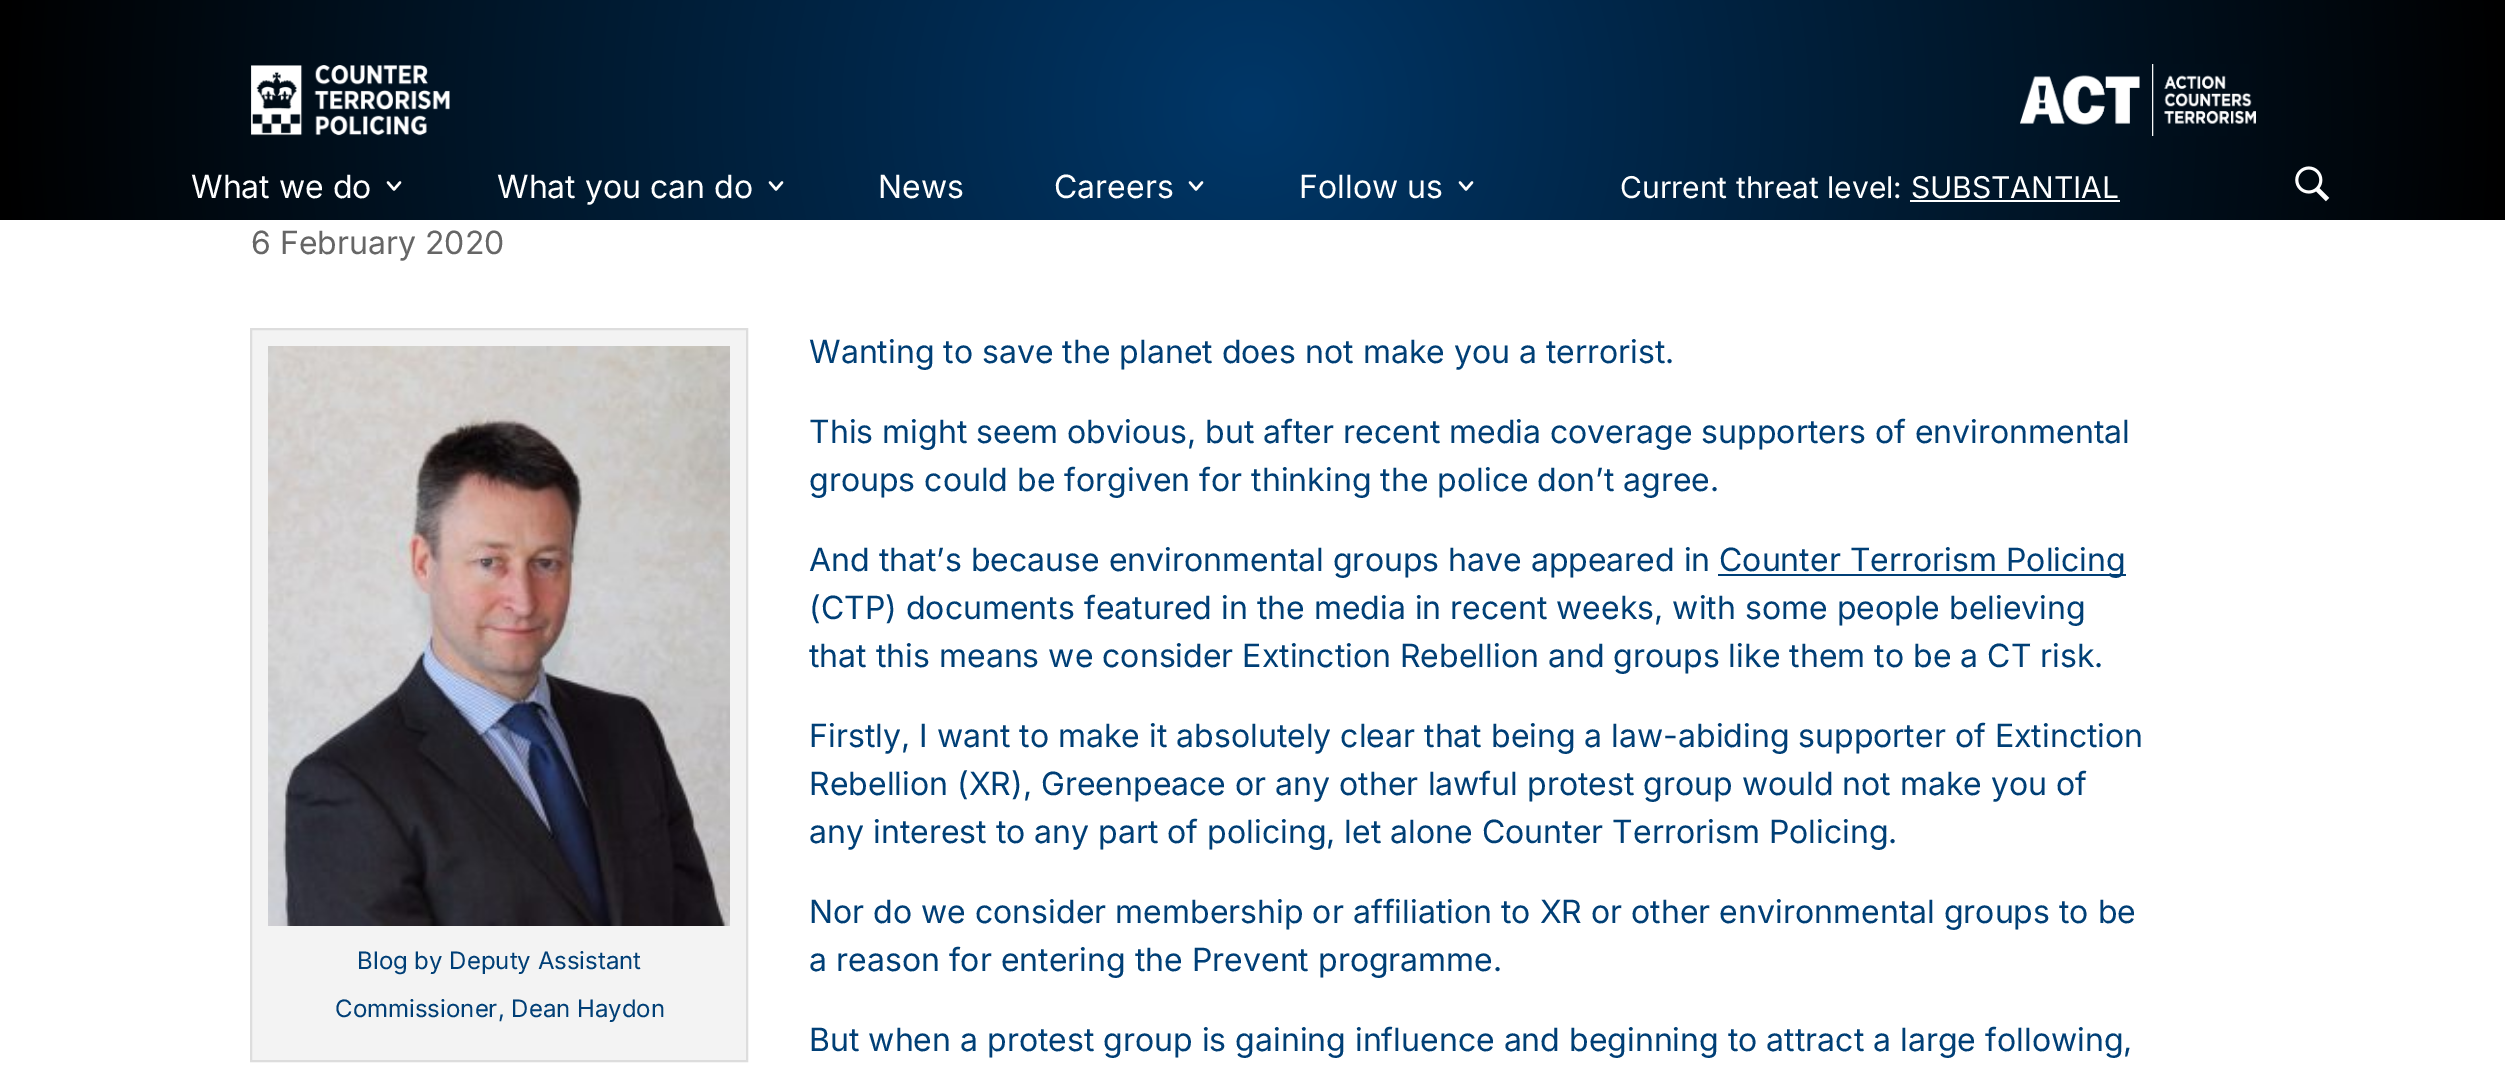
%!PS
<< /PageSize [2505 1069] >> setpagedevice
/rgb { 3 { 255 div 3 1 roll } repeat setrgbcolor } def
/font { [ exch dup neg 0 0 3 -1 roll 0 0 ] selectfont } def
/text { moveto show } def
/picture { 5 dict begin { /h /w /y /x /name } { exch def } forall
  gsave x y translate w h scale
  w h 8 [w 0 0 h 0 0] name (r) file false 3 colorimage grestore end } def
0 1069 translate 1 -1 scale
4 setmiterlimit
255 255 255 rgb
0 0 2505 1069 rectfill
gsave 0 0 moveto 2505 0 rlineto 0 220 rlineto -2505 0 rlineto closepath clip newpath 1253 110 translate 1258 1258 scale
<< /ShadingType 3 /ColorSpace /DeviceRGB /Coords [0 0 0 0 0 1] /Extend [true true] /Function << /FunctionType 2 /Domain [0 1] /C0 [0 0.216 0.408] /C1 [0 0 0] /N 1 >> >> shfill grestore
(img_01.rgb) 251 65 199 71 picture
(img_02.rgb) 2020 64 236 72 picture
2.4 setlinewidth
1 setlinecap
1 setlinejoin
388 182.5 moveto 6 7 rlineto 6 -7 rlineto stroke
770 182.5 moveto 6 7 rlineto 6 -7 rlineto stroke
1190 182.5 moveto 6 7 rlineto 6 -7 rlineto stroke
1460 182.5 moveto 6 7 rlineto 6 -7 rlineto stroke
1910 200 210 2 rectfill
(img_03.rgb) 2295 166 35 36 picture
0 63 118 rgb
1718 574 408 2 rectfill
243 243 243 rgb
251 329 moveto 496 0 rlineto 0 732 rlineto -496 0 rlineto closepath gsave fill grestore
221 221 221 rgb
2 setlinewidth
0 setlinecap
0 setlinejoin
stroke
(img_04.rgb) 268 346 462 580 picture
/Inter-Regular 32 font
255 255 255 rgb
(What we do) 191 198 text
(What you can do) 497 198 text
(News) 878 198 text
(Careers) 1054 198 text
(Follow us) 1299 198 text
/Inter-Regular 30 font
(Current threat level: SUBSTANTIAL) 1620 198 text
/Inter-Regular 32 font
102 102 102 rgb
(6 February 2020) 251 254 text
0 63 118 rgb
(Wanting to save the planet does not make you a terrorist.) 809 363 text
(This might seem obvious, but after recent media coverage supporters of environmental) 809 443 text
(groups could be forgiven for thinking the police don’t agree.) 809 491 text
(And that’s because environmental groups have appeared in) 809 571 text
(Counter Terrorism Policing) 1719 571 text
(\(CTP\) documents featured in the media in recent weeks, with some people believing) 809 619 text
(that this means we consider Extinction Rebellion and groups like them to be a CT risk.) 809 667 text
(Firstly, I want to make it absolutely clear that being a law-abiding supporter of Extinction) 809 747 text
(Rebellion \(XR\), Greenpeace or any other lawful protest group would not make you of) 809 795 text
(any interest to any part of policing, let alone Counter Terrorism Policing.) 809 843 text
(Nor do we consider membership or affiliation to XR or other environmental groups to be) 809 923 text
(a reason for entering the Prevent programme.) 809 971 text
/Inter-Regular 24 font
(Blog by Deputy Assistant) 357 969 text
(Commissioner, Dean Haydon) 335 1017 text
/Inter-Regular 32 font
(But when a protest group is gaining influence and beginning to attract a large following,) 809 1051 text
showpage
